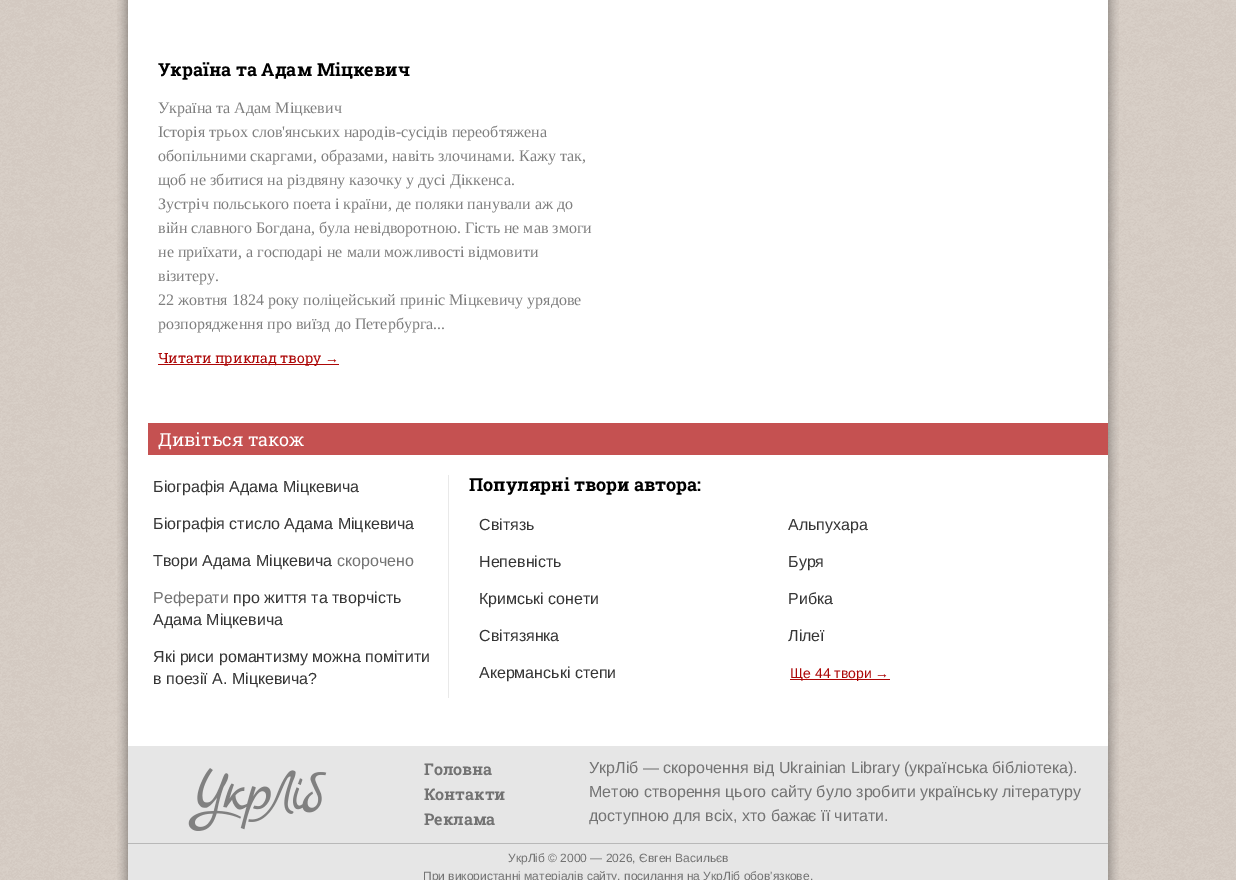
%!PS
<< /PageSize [1236 880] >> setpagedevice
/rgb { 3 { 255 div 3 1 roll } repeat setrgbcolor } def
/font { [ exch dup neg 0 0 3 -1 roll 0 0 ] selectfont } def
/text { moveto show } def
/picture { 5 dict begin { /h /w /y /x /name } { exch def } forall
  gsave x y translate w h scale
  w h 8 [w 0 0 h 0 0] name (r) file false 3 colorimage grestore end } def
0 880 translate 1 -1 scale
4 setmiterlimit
255 255 255 rgb
0 0 1236 880 rectfill
(img_01.rgb) 0 0 1236 880 picture
(img_02.rgb) 117 0 1002 746 picture
173 7 7 rgb
158 364 181 1 rectfill
197 81 81 rgb
148 423 960 32 rectfill
233 233 233 rgb
448 475 1 223 rectfill
173 7 7 rgb
790 679 100 1 rectfill
(img_03.rgb) 117 746 1002 134 picture
230 230 230 rgb
128 746 980 134 rectfill
(img_04.rgb) 188 768 139 63 picture
184 184 184 rgb
128 843 980 1 rectfill
/RobotoSlab-Bold 18 font
0 0 0 rgb
(Україна та Адам Міцкевич) 158 76 text
/LiberationSerif-Regular 16 font
127 127 127 rgb
(Україна та Адам Міцкевич) 158 113 text
(Історія трьох слов'янських народів-сусідів переобтяжена) 158 137 text
(обопільними скаргами, образами, навіть злочинами. Кажу так,) 158 161 text
(щоб не збитися на різдвяну казочку у дусі Діккенса.) 158 185 text
(Зустріч польського поета і країни, де поляки панували аж до) 158 209 text
(війн славного Богдана, була невідворотною. Гість не мав змоги) 158 233 text
(не приїхати, а господарі не мали можливості відмовити) 158 257 text
(візитеру.) 158 281 text
(22 жовтня 1824 року поліцейський приніс Міцкевичу урядове) 158 305 text
(розпорядження про виїзд до Петербурга...) 158 329 text
/RobotoSlab-Regular 14 font
173 7 7 rgb
(Читати приклад твору) 158 363 text
/LiberationSerif-Regular 14 font
(→) 325 363 text
/RobotoSlab-Regular 18 font
255 255 255 rgb
(Дивіться також) 158 446 text
/LiberationSans-Regular 16 font
53 53 53 rgb
(Біографія Адама Міцкевича) 153 492 text
(Біографія стисло Адама Міцкевича) 153 529 text
(Твори Адама Міцкевича) 153 566 text
115 115 115 rgb
(скорочено) 337 566 text
(Реферати) 153 603 text
53 53 53 rgb
(про життя та творчість) 233 603 text
(Адама Міцкевича) 153 625 text
(Які риси романтизму можна помітити) 153 662 text
(в поезії А. Міцкевича?) 153 684 text
/RobotoSlab-Bold 18 font
0 0 0 rgb
(Популярні твори автора:) 469 491 text
/LiberationSans-Regular 16 font
53 53 53 rgb
(Світязь) 479 530 text
(Непевність) 479 567 text
(Кримські сонети) 479 604 text
(Світязянка) 479 641 text
(Акерманські степи) 479 678 text
(Альпухара) 788 530 text
(Буря) 788 567 text
(Рибка) 788 604 text
(Лілеї) 788 641 text
/LiberationSans-Regular 14 font
173 7 7 rgb
(Ще 44 твори →) 790 678 text
/RobotoSlab-Bold 16 font
115 115 115 rgb
(Головна) 424 775 text
(Контакти) 424 800 text
(Реклама) 424 825 text
/LiberationSans-Regular 16 font
(УкрЛіб — скорочення від Ukrainian Library \(українська бібліотека\).) 589 773 text
(Метою створення цього сайту було зробити українську літературу) 589 797 text
(доступною для всіх, хто бажає її читати.) 589 821 text
/LiberationSans-Regular 12 font
(УкрЛіб © 2000 — 2026, Євген Васильєв) 508 862 text
(При використанні матеріалів сайту, посилання на УкрЛіб обов'язкове.) 423 880 text
showpage
